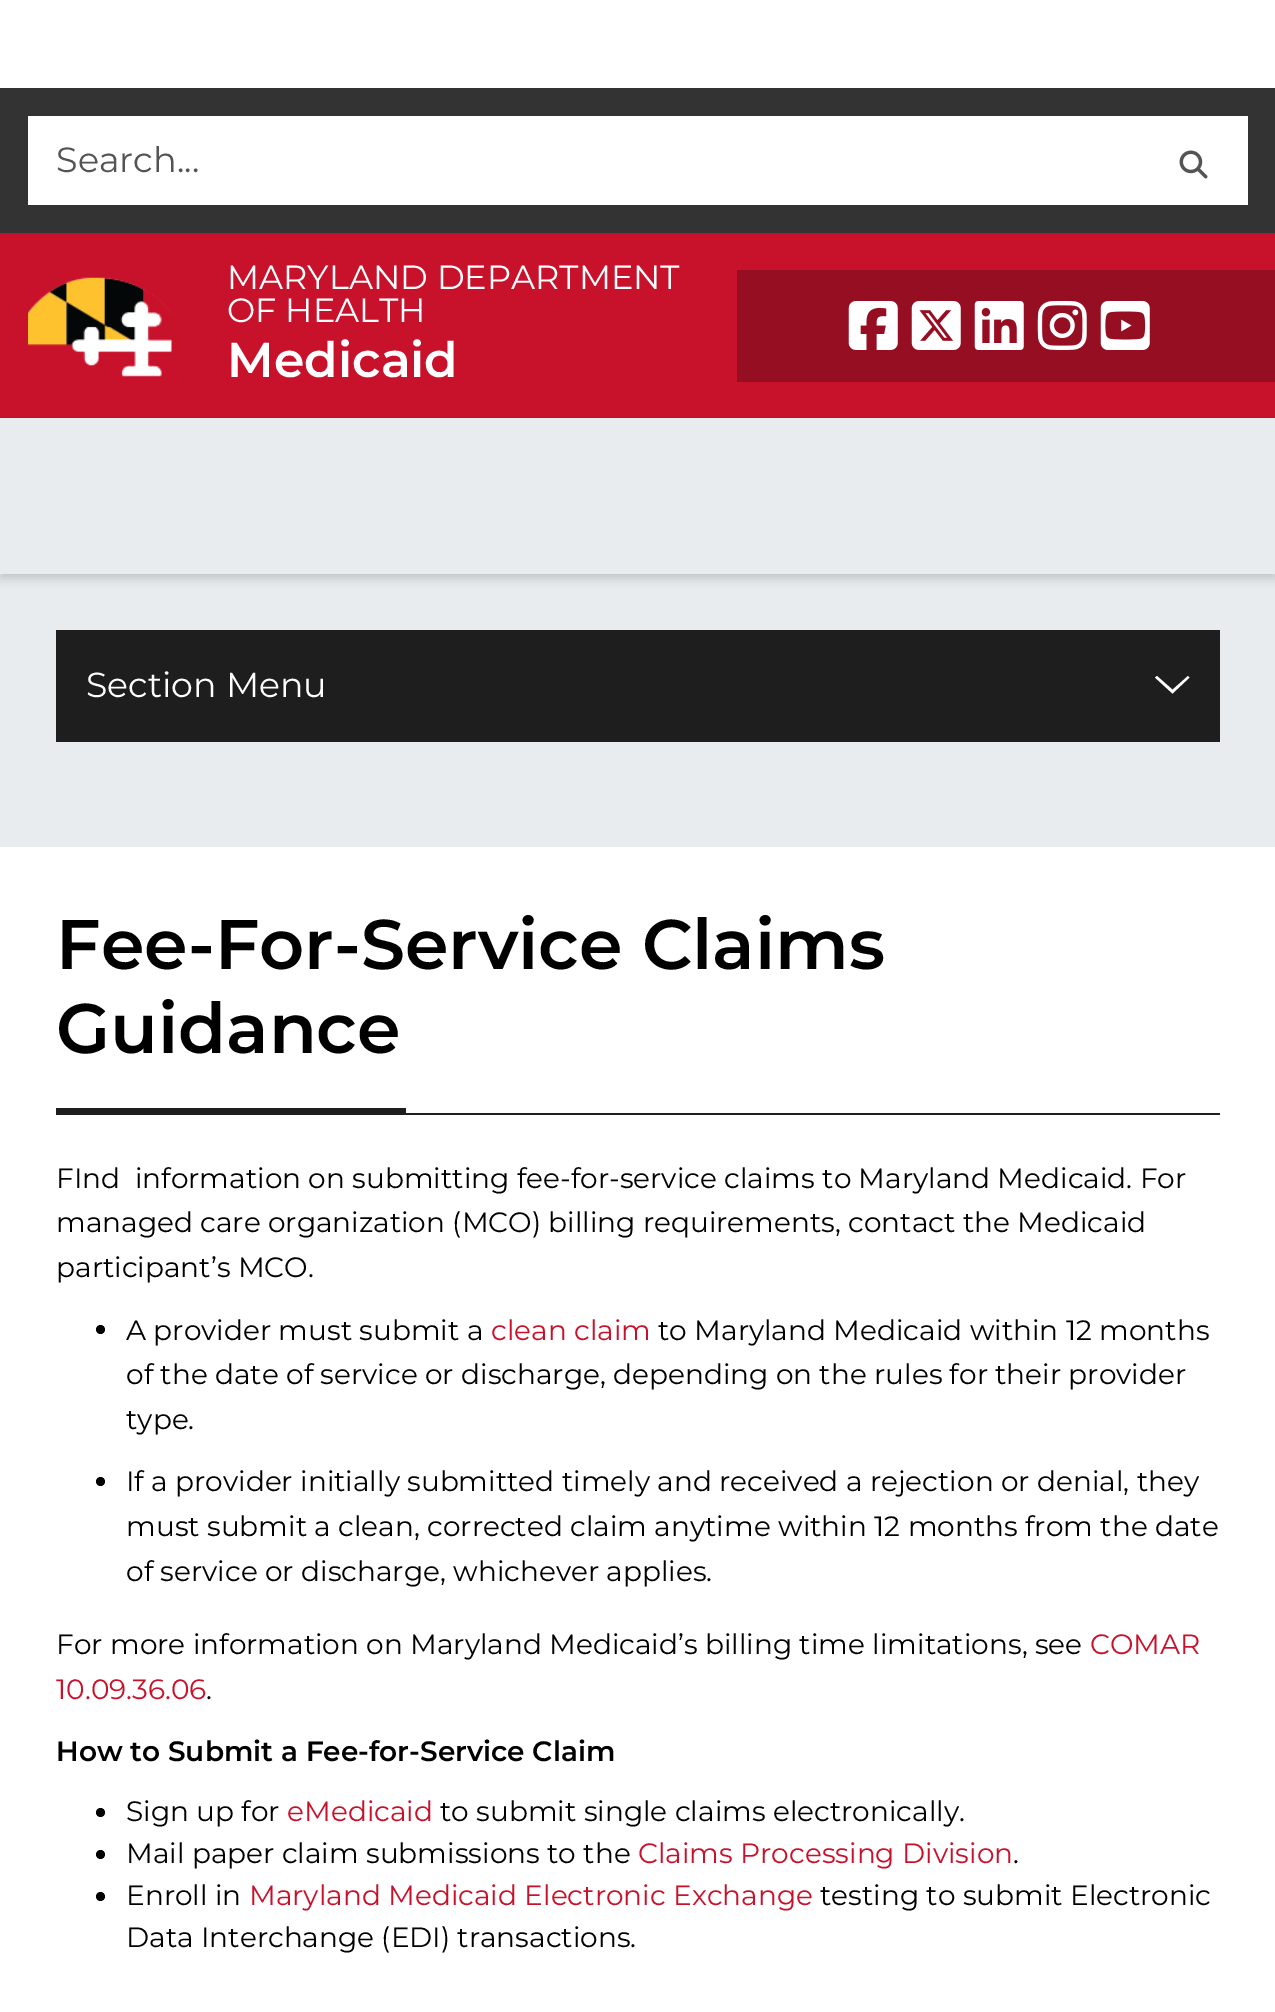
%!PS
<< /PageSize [1275 2012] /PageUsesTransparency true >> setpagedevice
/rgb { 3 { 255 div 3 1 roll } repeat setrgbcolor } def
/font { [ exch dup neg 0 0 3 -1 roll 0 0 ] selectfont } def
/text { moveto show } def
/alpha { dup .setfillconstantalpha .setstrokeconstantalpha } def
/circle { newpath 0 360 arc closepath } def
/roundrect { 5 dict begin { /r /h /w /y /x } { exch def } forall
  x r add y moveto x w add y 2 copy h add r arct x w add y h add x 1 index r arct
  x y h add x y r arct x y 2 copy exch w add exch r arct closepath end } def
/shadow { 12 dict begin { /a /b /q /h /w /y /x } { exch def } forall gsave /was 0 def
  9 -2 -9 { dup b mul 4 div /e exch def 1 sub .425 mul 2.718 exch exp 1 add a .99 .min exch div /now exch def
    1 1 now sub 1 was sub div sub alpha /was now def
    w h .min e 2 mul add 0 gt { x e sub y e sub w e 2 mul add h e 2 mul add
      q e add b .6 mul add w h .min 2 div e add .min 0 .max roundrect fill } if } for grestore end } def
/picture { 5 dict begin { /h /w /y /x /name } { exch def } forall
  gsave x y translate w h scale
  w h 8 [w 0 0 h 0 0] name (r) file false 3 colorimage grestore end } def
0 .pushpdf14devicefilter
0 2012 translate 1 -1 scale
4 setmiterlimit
255 255 255 rgb
0 0 1275 2012 rectfill
51 51 51 rgb
0 88 1275 145 rectfill
255 255 255 rgb
28 116 1220 89 rectfill
(img_01.rgb) 1179 150 29 29 picture
200 18 44 rgb
0 233 1275 185 rectfill
(img_02.rgb) 28 277 144 100 picture
150 14 33 rgb
737 270 538 112 rectfill
(img_03.rgb) 848 301 50 49 picture
(img_04.rgb) 911 301 50 49 picture
(img_05.rgb) 974 301 50 49 picture
(img_06.rgb) 1037 301 50 49 picture
(img_07.rgb) 1100 301 50 49 picture
233 236 239 rgb
0 574 1275 273 rectfill
0 0 0 rgb
0 424 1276 155 0 5 0.16 shadow
233 236 239 rgb
0 418 1275 156 rectfill
30 30 30 rgb
56 630 1164 112 rectfill
255 255 255 rgb
1172.5 693.5 moveto 2 -2 rlineto -17.5 -15.5 rlineto -2 1.5 rlineto closepath 1170.5 691.5 moveto 2 2 rlineto 17 -16 rlineto -1.5 -1.5 rlineto closepath fill
30 30 30 rgb
56 1113 1164 2 rectfill
56 1108 350 5 rectfill
0 0 0 rgb
100.5 1329.5 4.5 circle fill
100.5 1481.5 4.5 circle fill
100.5 1812.5 4.5 circle fill
100.5 1854.5 4.5 circle fill
100.5 1896.5 4.5 circle fill
/Montserrat-Thin 35 font
84 84 84 rgb
(Search...) 56 172 text
/Montserrat-Thin 33.6 font
255 255 255 rgb
(MARYLAND DEPARTMENT) 227 289 text
(OF HEALTH) 227 322 text
/Montserrat-SemiBold 49 font
(Medicaid) 227 377 text
/Montserrat-Thin 34.75 font
(Section Menu) 86 697 text
/Montserrat-SemiBold 70 font
0 0 0 rgb
(Fee-For-Service Claims) 56 969 text
(Guidance) 56 1053 text
/Montserrat-Thin 28 font
(FInd  information on submitting fee-for-service claims to Maryland Medicaid. For) 56 1188 text
(managed care organization \(MCO\) billing requirements, contact the Medicaid) 56 1232 text
(participant’s MCO.) 56 1277 text
(A provider must submit a) 126 1340 text
200 18 44 rgb
(clean claim) 491 1340 text
0 0 0 rgb
(to Maryland Medicaid within 12 months) 658 1340 text
(of the date of service or discharge, depending on the rules for their provider) 126 1384 text
(type.) 126 1429 text
(If a provider initially submitted timely and received a rejection or denial, they) 126 1491 text
(must submit a clean, corrected claim anytime within 12 months from the date) 126 1536 text
(of service or discharge, whichever applies.) 126 1581 text
(For more information on Maryland Medicaid’s billing time limitations, see) 56 1654 text
200 18 44 rgb
(COMAR) 1090 1654 text
(10.09.36.06) 56 1699 text
0 0 0 rgb
(.) 206 1699 text
/Montserrat-SemiBold 28 font
(How to Submit a Fee-for-Service Claim) 56 1761 text
/Montserrat-Thin 28 font
(Sign up for) 126 1821 text
200 18 44 rgb
(eMedicaid) 287 1821 text
0 0 0 rgb
(to submit single claims electronically.) 440 1821 text
(Mail paper claim submissions to the) 126 1863 text
200 18 44 rgb
(Claims Processing Division) 638 1863 text
0 0 0 rgb
(.) 1013 1863 text
(Enroll in) 126 1905 text
200 18 44 rgb
(Maryland Medicaid Electronic Exchange) 249 1905 text
0 0 0 rgb
(testing to submit Electronic) 820 1905 text
(Data Interchange \(EDI\) transactions.) 126 1947 text
.poppdf14devicefilter showpage
